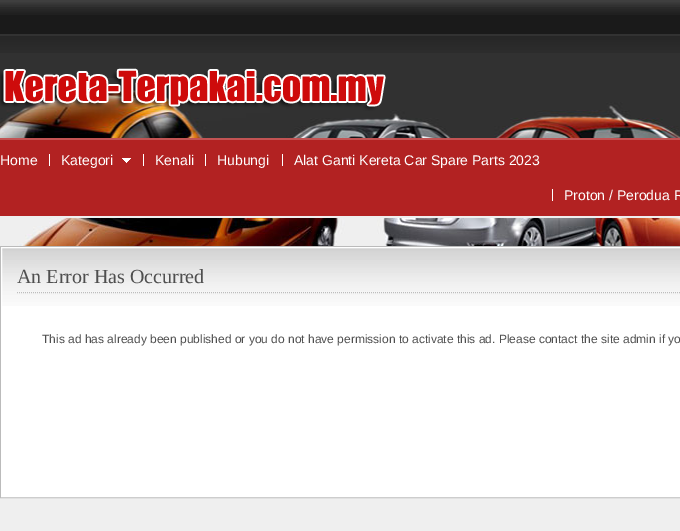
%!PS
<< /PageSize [680 531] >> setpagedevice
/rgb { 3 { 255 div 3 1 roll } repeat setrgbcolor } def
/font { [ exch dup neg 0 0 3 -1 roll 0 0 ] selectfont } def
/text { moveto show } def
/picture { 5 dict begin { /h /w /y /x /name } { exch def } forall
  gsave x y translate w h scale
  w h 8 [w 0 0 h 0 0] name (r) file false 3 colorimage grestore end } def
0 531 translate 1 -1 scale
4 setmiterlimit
239 239 239 rgb
0 0 680 531 rectfill
26 26 26 rgb
0 15 680 19 rectfill
(img_01.rgb) 0 0 680 15 picture
50 50 50 rgb
0 34 680 2 rectfill
49 49 49 rgb
0 53 680 25 rectfill
(img_02.rgb) 0 36 680 17 picture
(img_03.rgb) 0 78 680 60 picture
(img_04.rgb) 0 68 386 43 picture
178 34 34 rgb
0 140 680 76 rectfill
195 83 83 rgb
0 138 680 2 rectfill
255 255 255 rgb
49 154 1 12 rectfill
(img_05.rgb) 122 158 9 5 picture
143 154 1 12 rectfill
205 154 1 12 rectfill
282 154 1 12 rectfill
552 189 1 12 rectfill
(img_06.rgb) 1 218 679 28 picture
187 187 187 rgb
0.5 246.5 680 251 rectstroke
255 255 255 rgb
2 306 678 190 rectfill
(img_07.rgb) 2 248 678 58 picture
1.5 247.5 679 249 rectstroke
189 189 189 rgb
[1 1] 0 setdash
17 292.5 moveto 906 0 rlineto stroke
/LiberationSans-Regular 14 font
255 255 255 rgb
(Home) 0 165 text
(Kategori) 61 165 text
(Kenali) 155 165 text
(Hubungi) 217 165 text
(Alat Ganti Kereta Car Spare Parts 2023) 294 165 text
(Proton / Perodua R) 564 200 text
/LiberationSerif-Regular 20 font
79 79 79 rgb
(An Error Has Occurred) 17 283 text
/LiberationSans-Regular 12 font
(This ad has already been published or you do not have permission to activate this ad. Please contact the site admin if yo) 42 343 text
showpage
